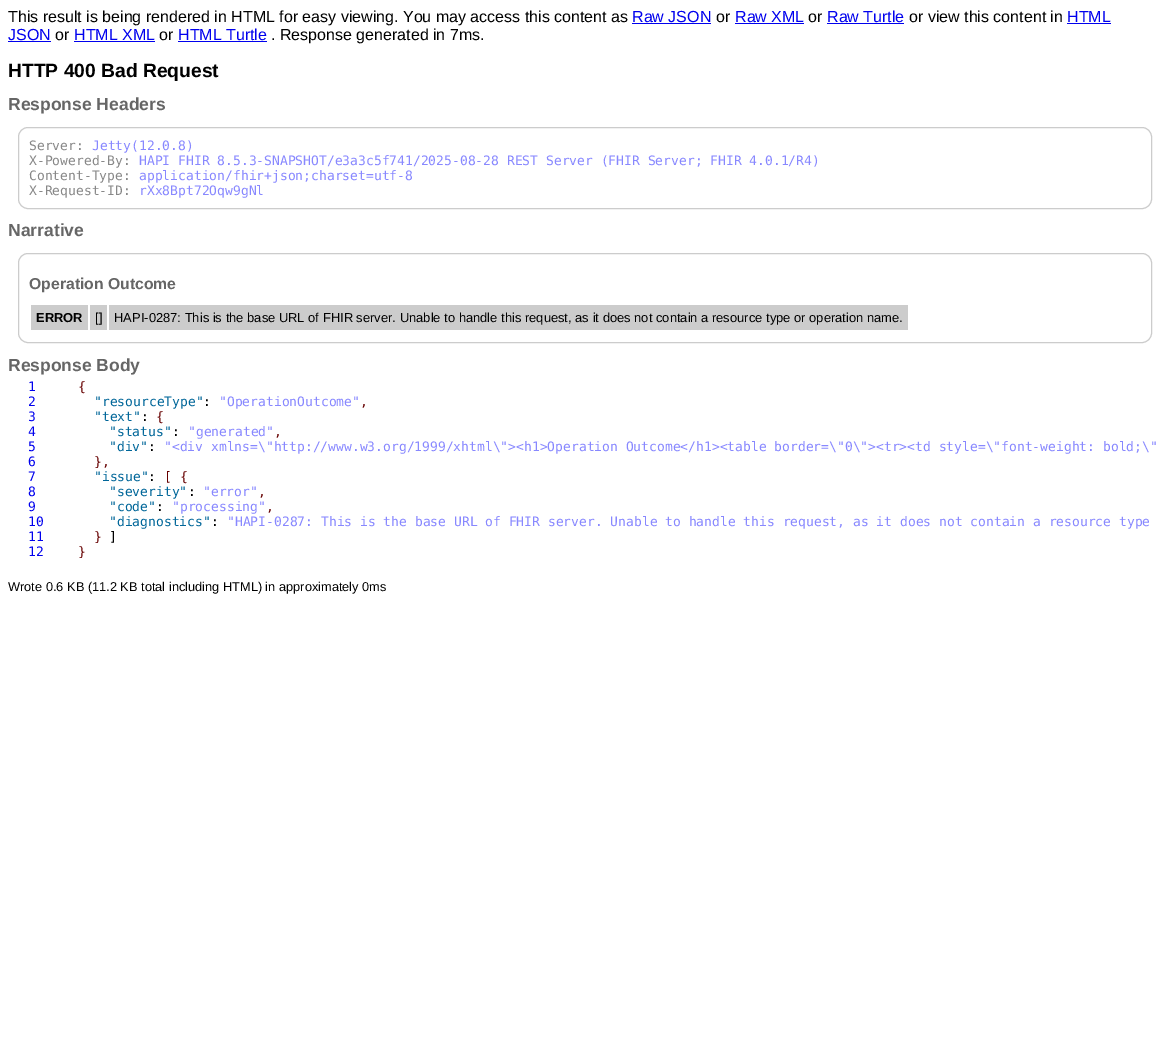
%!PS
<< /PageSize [1160 1049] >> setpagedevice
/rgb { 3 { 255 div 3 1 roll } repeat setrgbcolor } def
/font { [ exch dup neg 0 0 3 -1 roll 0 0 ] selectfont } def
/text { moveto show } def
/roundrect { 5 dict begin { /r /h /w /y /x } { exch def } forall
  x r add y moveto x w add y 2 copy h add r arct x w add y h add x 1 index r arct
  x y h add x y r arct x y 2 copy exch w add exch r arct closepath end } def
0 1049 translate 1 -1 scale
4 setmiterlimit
255 255 255 rgb
0 0 1160 1049 rectfill
0 0 238 rgb
632 23 79 1 rectfill
735 23 69 1 rectfill
827 23 77 1 rectfill
1067 23 44 1 rectfill
8 41 43 1 rectfill
74 41 81 1 rectfill
178 41 89 1 rectfill
204 204 204 rgb
18.5 127.5 1133 81 9.5 roundrect stroke
18.5 253.5 1133 89 9.5 roundrect stroke
31 305 57 25 rectfill
90 305 17 25 rectfill
109 305 799 25 rectfill
/LiberationSans-Regular 16 font
0 0 0 rgb
(This result is being rendered in HTML for easy viewing. You may access this content as) 8 22 text
0 0 238 rgb
(Raw JSON) 632 22 text
0 0 0 rgb
(or) 716 22 text
0 0 238 rgb
(Raw XML) 735 22 text
0 0 0 rgb
(or) 808 22 text
0 0 238 rgb
(Raw Turtle) 827 22 text
0 0 0 rgb
(or view this content in) 909 22 text
0 0 238 rgb
(HTML) 1067 22 text
(JSON) 8 40 text
0 0 0 rgb
(or) 55 40 text
0 0 238 rgb
(HTML XML) 74 40 text
0 0 0 rgb
(or) 159 40 text
0 0 238 rgb
(HTML Turtle) 178 40 text
0 0 0 rgb
(. Response generated in 7ms.) 271 40 text
/LiberationSans-Bold 19.25 font
(HTTP 400 Bad Request) 8 77 text
/LiberationSans-Bold 17.5 font
102 102 102 rgb
(Response Headers) 8 110 text
/DejaVuSansMono-Regular 13 font
136 136 136 rgb
(Server:) 29 150 text
136 136 255 rgb
(Jetty\(12.0.8\)) 92 150 text
136 136 136 rgb
(X-Powered-By:) 29 165 text
136 136 255 rgb
(HAPI FHIR 8.5.3-SNAPSHOT/e3a3c5f741/2025-08-28 REST Server \(FHIR Server; FHIR 4.0.1/R4\)) 139 165 text
136 136 136 rgb
(Content-Type:) 29 180 text
136 136 255 rgb
(application/fhir+json;charset=utf-8) 139 180 text
136 136 136 rgb
(X-Request-ID:) 29 195 text
136 136 255 rgb
(rXx8Bpt72Oqw9gNl) 139 195 text
/LiberationSans-Bold 17.5 font
102 102 102 rgb
(Narrative) 8 236 text
/LiberationSans-Bold 15.75 font
(Operation Outcome) 29 289 text
/LiberationSans-Bold 12.95 font
0 0 0 rgb
(ERROR) 36 322 text
/LiberationSans-Regular 12.95 font
([]) 95 322 text
(HAPI-0287: This is the base URL of FHIR server. Unable to handle this request, as it does not contain a resource type or operation name.) 114 322 text
/LiberationSans-Bold 17.5 font
102 102 102 rgb
(Response Body) 8 371 text
/DejaVuSansMono-Regular 13 font
0 0 238 rgb
(1) 28 391 text
(2) 28 406 text
(3) 28 421 text
(4) 28 436 text
(5) 28 451 text
(6) 28 466 text
(7) 28 481 text
(8) 28 496 text
(9) 28 511 text
(10) 28 526 text
(11) 28 541 text
(12) 28 556 text
102 0 0 rgb
({) 78 391 text
0 102 153 rgb
("resourceType") 94 406 text
0 0 0 rgb
(:) 203 406 text
136 136 255 rgb
("OperationOutcome") 219 406 text
102 0 0 rgb
(,) 360 406 text
0 102 153 rgb
("text") 94 421 text
0 0 0 rgb
(:) 141 421 text
102 0 0 rgb
({) 156 421 text
0 102 153 rgb
("status") 109 436 text
0 0 0 rgb
(:) 172 436 text
136 136 255 rgb
("generated") 188 436 text
102 0 0 rgb
(,) 274 436 text
0 102 153 rgb
("div") 109 451 text
0 0 0 rgb
(:) 148 451 text
136 136 255 rgb
("<div xmlns=\\"http://www.w3.org/1999/xhtml\\"><h1>Operation Outcome</h1><table border=\\"0\\"><tr><td style=\\"font-weight: bold;\\") 164 451 text
102 0 0 rgb
(},) 94 466 text
0 102 153 rgb
("issue") 94 481 text
0 0 0 rgb
(:) 148 481 text
102 0 0 rgb
([ {) 164 481 text
0 102 153 rgb
("severity") 109 496 text
0 0 0 rgb
(:) 188 496 text
136 136 255 rgb
("error") 203 496 text
102 0 0 rgb
(,) 258 496 text
0 102 153 rgb
("code") 109 511 text
0 0 0 rgb
(:) 156 511 text
136 136 255 rgb
("processing") 172 511 text
102 0 0 rgb
(,) 266 511 text
0 102 153 rgb
("diagnostics") 109 526 text
0 0 0 rgb
(:) 211 526 text
136 136 255 rgb
("HAPI-0287: This is the base URL of FHIR server. Unable to handle this request, as it does not contain a resource type) 227 526 text
102 0 0 rgb
(}) 94 541 text
0 0 0 rgb
(]) 109 541 text
102 0 0 rgb
(}) 78 556 text
/LiberationSans-Regular 12.8 font
0 0 0 rgb
(Wrote 0.6 KB \(11.2 KB total including HTML\) in approximately 0ms) 8 591 text
showpage
